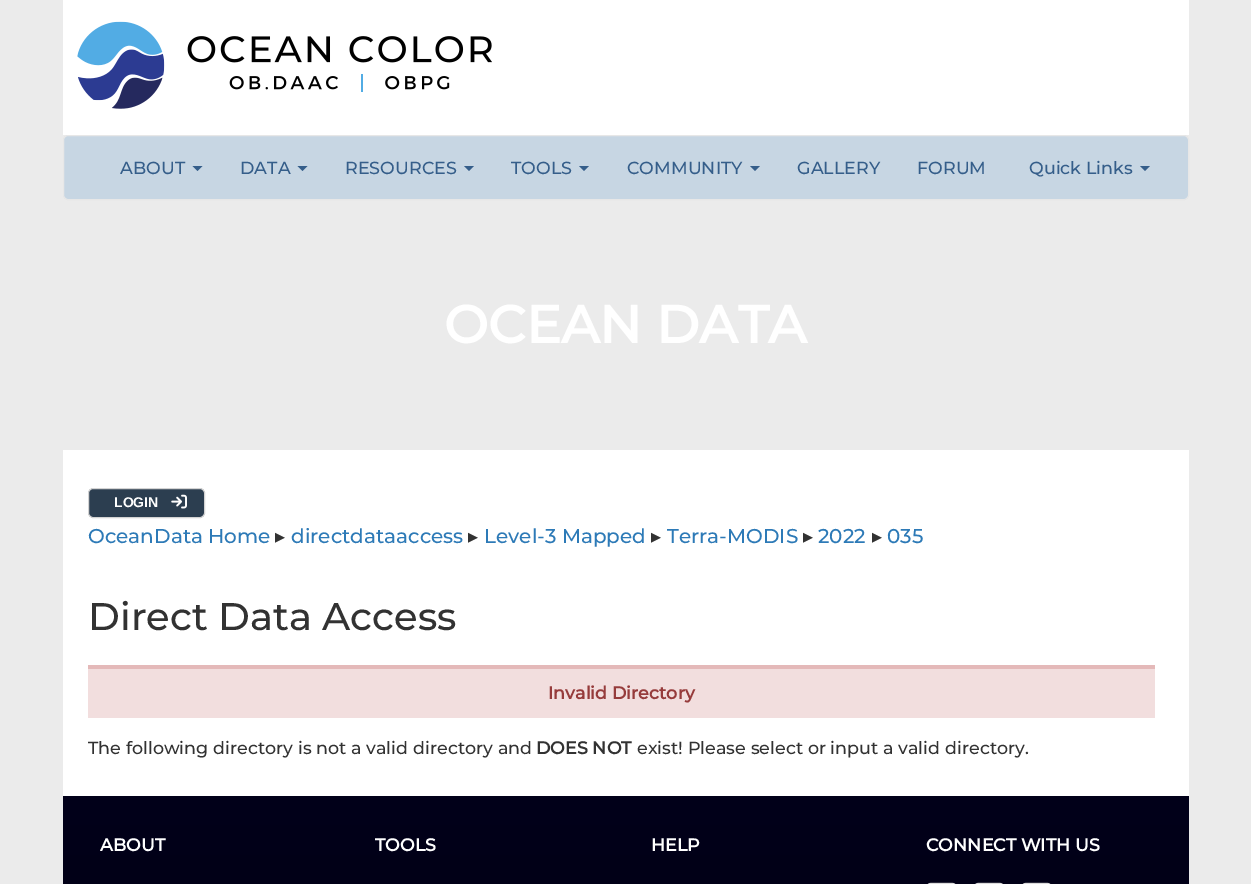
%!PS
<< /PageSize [1251 884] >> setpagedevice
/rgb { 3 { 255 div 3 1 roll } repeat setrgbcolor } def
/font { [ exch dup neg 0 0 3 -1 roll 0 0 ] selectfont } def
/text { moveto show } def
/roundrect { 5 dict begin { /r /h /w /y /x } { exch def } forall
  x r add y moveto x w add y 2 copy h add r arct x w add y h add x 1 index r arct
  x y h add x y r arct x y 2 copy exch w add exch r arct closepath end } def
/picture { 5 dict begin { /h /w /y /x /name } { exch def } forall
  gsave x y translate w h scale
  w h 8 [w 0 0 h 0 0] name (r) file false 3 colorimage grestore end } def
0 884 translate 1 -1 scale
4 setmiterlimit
235 235 235 rgb
0 0 1251 884 rectfill
255 255 255 rgb
63 0 1126 135 rectfill
(img_01.rgb) 77 21 415 88 picture
199 214 227 rgb
63.5 135.5 1125 64 4.5 roundrect gsave fill grestore
231 231 231 rgb
stroke
53 94 138 rgb
192.5 166 moveto 10 0 rlineto -5 5 rlineto closepath fill
297.5 166 moveto 10 0 rlineto -5 5 rlineto closepath fill
464 166 moveto 10 0 rlineto -5 5 rlineto closepath fill
579 166 moveto 10 0 rlineto -5 5 rlineto closepath fill
750 166 moveto 10 0 rlineto -5 5 rlineto closepath fill
1140 166 moveto 10 0 rlineto -5 5 rlineto closepath fill
255 255 255 rgb
63 450 1126 346 rectfill
44 62 80 rgb
88.5 488.5 116 29 4.5 roundrect gsave fill grestore
211 211 211 rgb
stroke
(img_02.rgb) 171 494 16 15 picture
242 222 222 rgb
88 669 1067 49 rectfill
228 185 185 rgb
88 665 1067 4 rectfill
gsave 63 796 moveto 1126 0 rlineto 0 88 rlineto -1126 0 rlineto closepath clip newpath
<< /ShadingType 2 /ColorSpace /DeviceRGB /Coords [626 796 626 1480] /Extend [true true] /Function << /FunctionType 2 /Domain [0 1] /C0 [0.004 0 0.102] /C1 [0 0 0] /N 1 >> >> shfill grestore
(img_03.rgb) 927 882 29 2 picture
(img_04.rgb) 975 882 28 2 picture
(img_03.rgb) 1022 882 29 2 picture
/Montserrat-Thin 17.5 font
53 94 138 rgb
(ABOUT) 120 174 text
(DATA) 240 174 text
(RESOURCES) 345 174 text
(TOOLS) 511 174 text
(COMMUNITY) 627 174 text
(GALLERY) 797 174 text
(FORUM) 917 174 text
(Quick Links) 1029 174 text
/Montserrat-Bold 52.5 font
255 255 255 rgb
(OCEAN DATA) 444 343 text
/LiberationSans-Bold 14 font
(LOGIN) 114 507 text
/Montserrat-Thin 20 font
45 122 183 rgb
(OceanData Home) 88 543 text
/DejaVuSans-Regular 20 font
50 50 50 rgb
(▸) 275 543 text
/Montserrat-Thin 20 font
45 122 183 rgb
(directdataaccess) 291 543 text
/DejaVuSans-Regular 20 font
50 50 50 rgb
(▸) 468 543 text
/Montserrat-Thin 20 font
45 122 183 rgb
(Level-3 Mapped) 484 543 text
/DejaVuSans-Regular 20 font
50 50 50 rgb
(▸) 651 543 text
/Montserrat-Thin 20 font
45 122 183 rgb
(Terra-MODIS) 667 543 text
/DejaVuSans-Regular 20 font
50 50 50 rgb
(▸) 803 543 text
/Montserrat-Thin 20 font
45 122 183 rgb
(2022) 818 543 text
/DejaVuSans-Regular 20 font
50 50 50 rgb
(▸) 872 543 text
/Montserrat-Thin 20 font
45 122 183 rgb
(035) 887 543 text
/Montserrat-Thin 38.5 font
50 50 50 rgb
(Direct Data Access) 88 630 text
/Montserrat-Bold 17.5 font
150 59 59 rgb
(Invalid Directory) 548 699 text
/Montserrat-Thin 17.5 font
50 50 50 rgb
(The following directory is not a valid directory and) 88 754 text
/Montserrat-Bold 17.5 font
(DOES NOT) 536 754 text
/Montserrat-Thin 17.5 font
(exist! Please select or input a valid directory.) 637 754 text
/Montserrat-Bold 17.5 font
255 255 255 rgb
(ABOUT) 100 851 text
(TOOLS) 375 851 text
(HELP) 651 851 text
(CONNECT WITH US) 926 851 text
showpage
